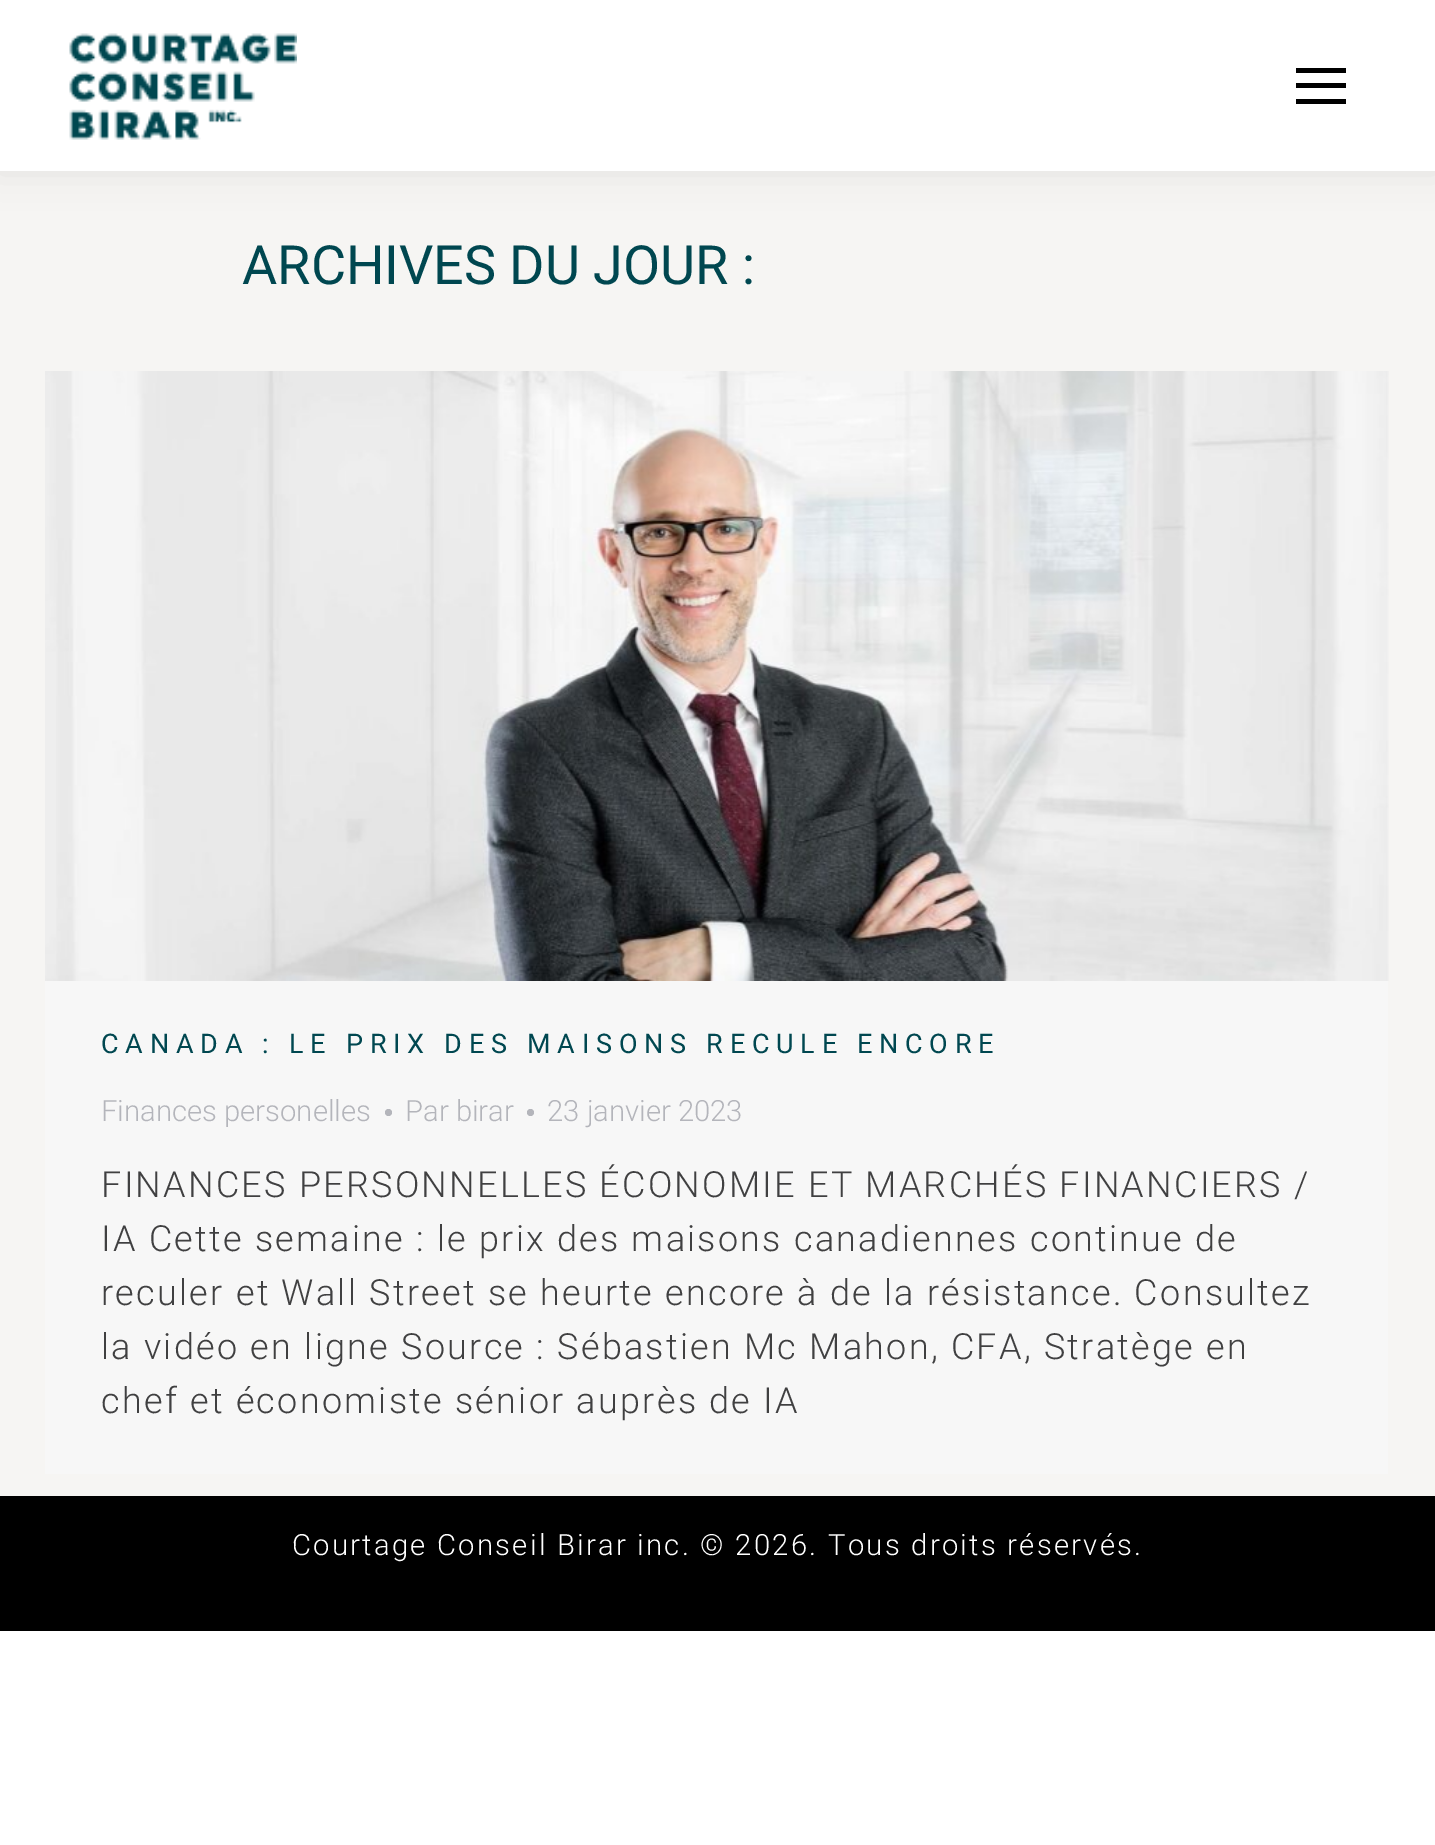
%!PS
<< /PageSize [1435 1845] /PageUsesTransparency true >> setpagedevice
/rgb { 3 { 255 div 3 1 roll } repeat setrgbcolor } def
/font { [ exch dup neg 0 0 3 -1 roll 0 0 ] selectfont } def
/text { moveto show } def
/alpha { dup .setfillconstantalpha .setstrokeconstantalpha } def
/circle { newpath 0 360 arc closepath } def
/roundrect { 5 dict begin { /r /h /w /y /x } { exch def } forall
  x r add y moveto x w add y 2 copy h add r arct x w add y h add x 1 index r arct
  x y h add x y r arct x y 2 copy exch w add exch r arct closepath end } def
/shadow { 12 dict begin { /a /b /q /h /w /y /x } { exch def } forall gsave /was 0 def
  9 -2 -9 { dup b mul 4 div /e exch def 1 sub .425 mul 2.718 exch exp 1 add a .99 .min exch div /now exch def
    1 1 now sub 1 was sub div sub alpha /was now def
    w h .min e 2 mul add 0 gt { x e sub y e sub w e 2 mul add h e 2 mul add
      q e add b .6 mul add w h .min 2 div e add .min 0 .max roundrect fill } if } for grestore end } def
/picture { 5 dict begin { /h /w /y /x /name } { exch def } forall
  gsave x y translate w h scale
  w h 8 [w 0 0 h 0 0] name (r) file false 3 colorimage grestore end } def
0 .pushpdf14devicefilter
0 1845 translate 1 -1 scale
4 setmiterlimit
255 255 255 rgb
0 0 1435 1845 rectfill
246 245 243 rgb
0 171 1435 1325 rectfill
0 0 0 rgb
-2 -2 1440 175 0 17 0.07 shadow
255 255 255 rgb
0 0 1435 171 rectfill
(img_01.rgb) 69 33 228 107 picture
0 0 0 rgb
1296 68 50 5 rectfill
1296 83 50 5 rectfill
1296 99 50 5 rectfill
247 247 247 rgb
45 371 1343 1103 rectfill
(img_02.rgb) 45 371 1344 610 picture
180 181 187 rgb
388.5 1112.5 3.5 circle fill
530.5 1112.5 3.5 circle fill
0 0 0 rgb
0 1496 1435 135 rectfill
/Roboto-Regular 54 font
0 71 80 rgb
(ARCHIVES DU JOUR :) 242 284 text
/Roboto-Regular 27 font
101 1053 moveto 6.75 0 (CANADA : LE PRIX DES MAISONS RECULE ENCORE) ashow
/Roboto-Light 29.25 font
180 181 187 rgb
(Finances personelles) 101 1121 text
(Par birar) 405 1121 text
(23 janvier 2023) 547 1121 text
/Roboto-Light 36 font
64 64 65 rgb
101 1197 moveto 2.25 0 (FINANCES PERSONNELLES ÉCONOMIE ET MARCHÉS FINANCIERS /) ashow
101 1251 moveto 2.25 0 (IA Cette semaine : le prix des maisons canadiennes continue de) ashow
101 1305 moveto 2.25 0 (reculer et Wall Street se heurte encore à de la résistance. Consultez) ashow
101 1359 moveto 2.25 0 (la vidéo en ligne Source : Sébastien Mc Mahon, CFA, Stratège en) ashow
101 1413 moveto 2.25 0 (chef et économiste sénior auprès de IA) ashow
/Roboto-Light 29.25 font
255 255 255 rgb
292 1555 moveto 2.25 0 (Courtage Conseil Birar inc. © 2026. Tous droits réservés.) ashow
.poppdf14devicefilter showpage
